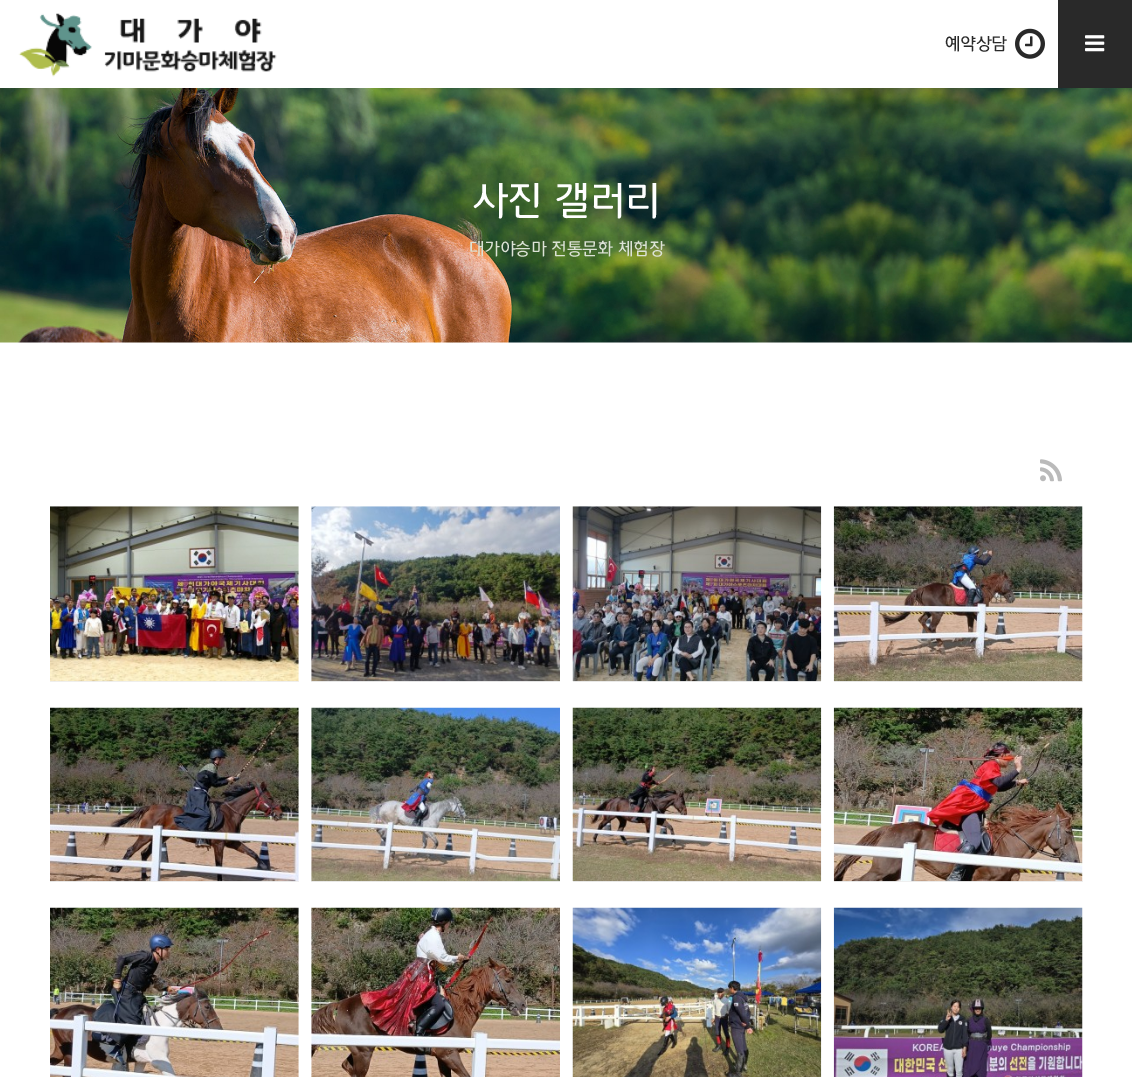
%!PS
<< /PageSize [1132 1077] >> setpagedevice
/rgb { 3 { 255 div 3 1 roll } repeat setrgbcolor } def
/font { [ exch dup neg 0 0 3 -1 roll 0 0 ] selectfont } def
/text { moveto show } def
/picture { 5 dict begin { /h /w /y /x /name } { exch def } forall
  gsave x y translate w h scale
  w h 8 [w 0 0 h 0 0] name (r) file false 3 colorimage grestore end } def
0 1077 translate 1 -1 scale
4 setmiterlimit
255 255 255 rgb
0 0 1132 1077 rectfill
(img_01.rgb) 18 13 259 64 picture
(img_02.rgb) 1015 28 30 31 picture
41 41 41 rgb
1058 0 74 88 rectfill
(img_03.rgb) 1085 35 20 17 picture
(img_04.rgb) 0 88 1132 255 picture
(img_05.rgb) 1040 459 22 23 picture
238 238 238 rgb
50 681 249 1 rectfill
(img_06.rgb) 50 506 249 176 picture
311 681 249 1 rectfill
(img_07.rgb) 311 506 249 176 picture
573 681 248 1 rectfill
(img_08.rgb) 572 506 250 176 picture
834 681 249 1 rectfill
(img_09.rgb) 833 506 250 176 picture
50 881 249 1 rectfill
(img_10.rgb) 50 707 249 175 picture
311 881 249 1 rectfill
(img_11.rgb) 311 707 249 175 picture
573 881 248 1 rectfill
(img_12.rgb) 572 707 250 175 picture
834 881 249 1 rectfill
(img_13.rgb) 833 707 250 175 picture
(img_14.rgb) 50 907 249 170 picture
(img_15.rgb) 311 907 249 170 picture
(img_16.rgb) 572 907 250 170 picture
(img_17.rgb) 833 907 250 170 picture
/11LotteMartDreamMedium-Regular 17.5 font
41 41 41 rgb
(예약상담) 945 50 text
/11LotteMartDreamMedium-Regular 40 font
255 255 255 rgb
(사진 갤러리) 472 215 text
/11LotteMartDreamMedium-Regular 17.5 font
220 226 214 rgb
(대가야승마 전통문화 체험장) 469 255 text
showpage
